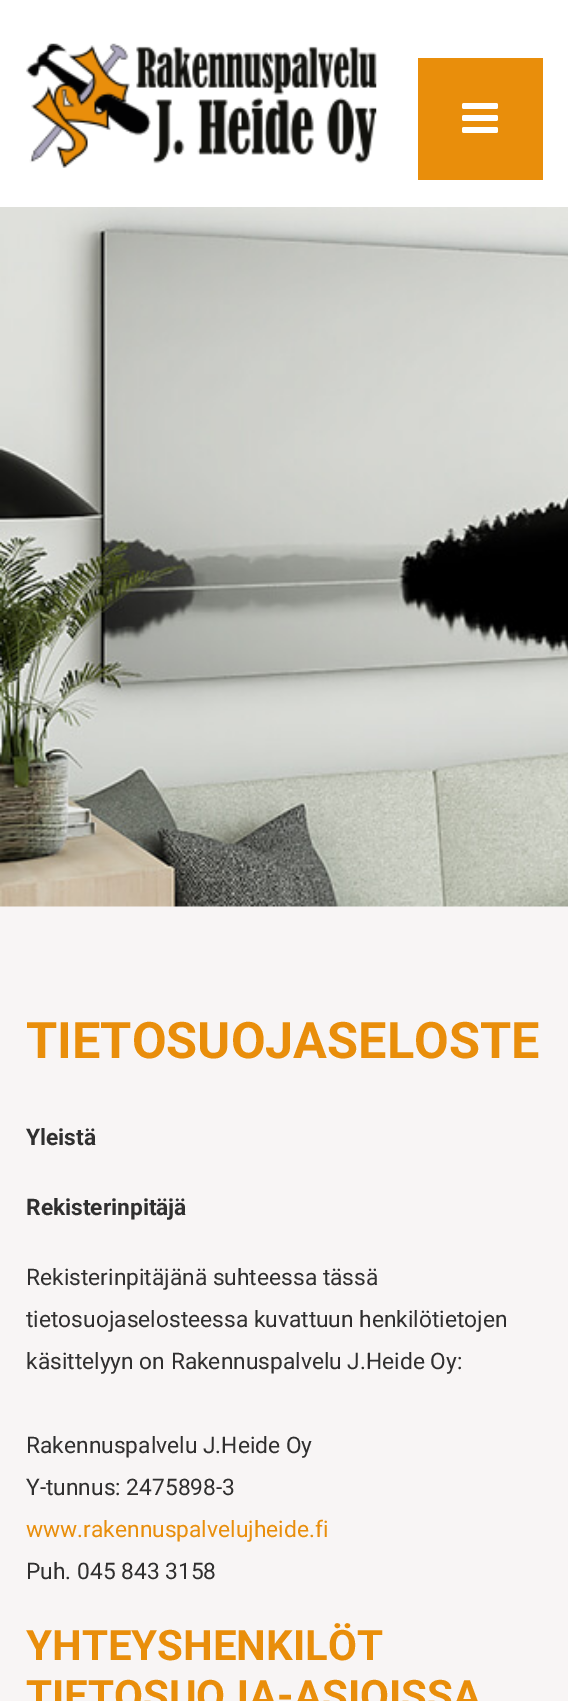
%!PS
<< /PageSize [568 1701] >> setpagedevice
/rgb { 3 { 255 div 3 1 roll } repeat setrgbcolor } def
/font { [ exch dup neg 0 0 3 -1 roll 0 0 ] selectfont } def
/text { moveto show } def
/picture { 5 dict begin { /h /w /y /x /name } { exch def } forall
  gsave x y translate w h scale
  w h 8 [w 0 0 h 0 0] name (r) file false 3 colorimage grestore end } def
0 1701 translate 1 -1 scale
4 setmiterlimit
248 245 245 rgb
0 0 568 1701 rectfill
255 255 255 rgb
0 0 568 207 rectfill
(img_01.rgb) 26 43 351 125 picture
233 142 11 rgb
418 58 125 122 rectfill
(img_02.rgb) 462 103 36 30 picture
(img_03.rgb) 0 207 568 700 picture
/Roboto-Bold 50.4 font
(TIETOSUOJASELOSTE) 26 1058 text
/Roboto-Bold 22.75 font
48 47 47 rgb
(Yleistä) 26 1145 text
(Rekisterinpitäjä) 26 1215 text
/Roboto-Regular 22.75 font
(Rekisterinpitäjänä suhteessa tässä) 26 1285 text
(tietosuojaselosteessa kuvattuun henkilötietojen) 26 1327 text
(käsittelyyn on Rakennuspalvelu J.Heide Oy:) 26 1369 text
(Rakennuspalvelu J.Heide Oy) 26 1453 text
(Y-tunnus: 2475898-3) 26 1495 text
233 142 11 rgb
(www.rakennuspalvelujheide.fi) 26 1537 text
48 47 47 rgb
(Puh. 045 843 3158) 26 1579 text
/Roboto-Bold 42 font
233 142 11 rgb
(YHTEYSHENKILÖT) 26 1660 text
(TIETOSUOJA-ASIOISSA) 26 1710 text
showpage
